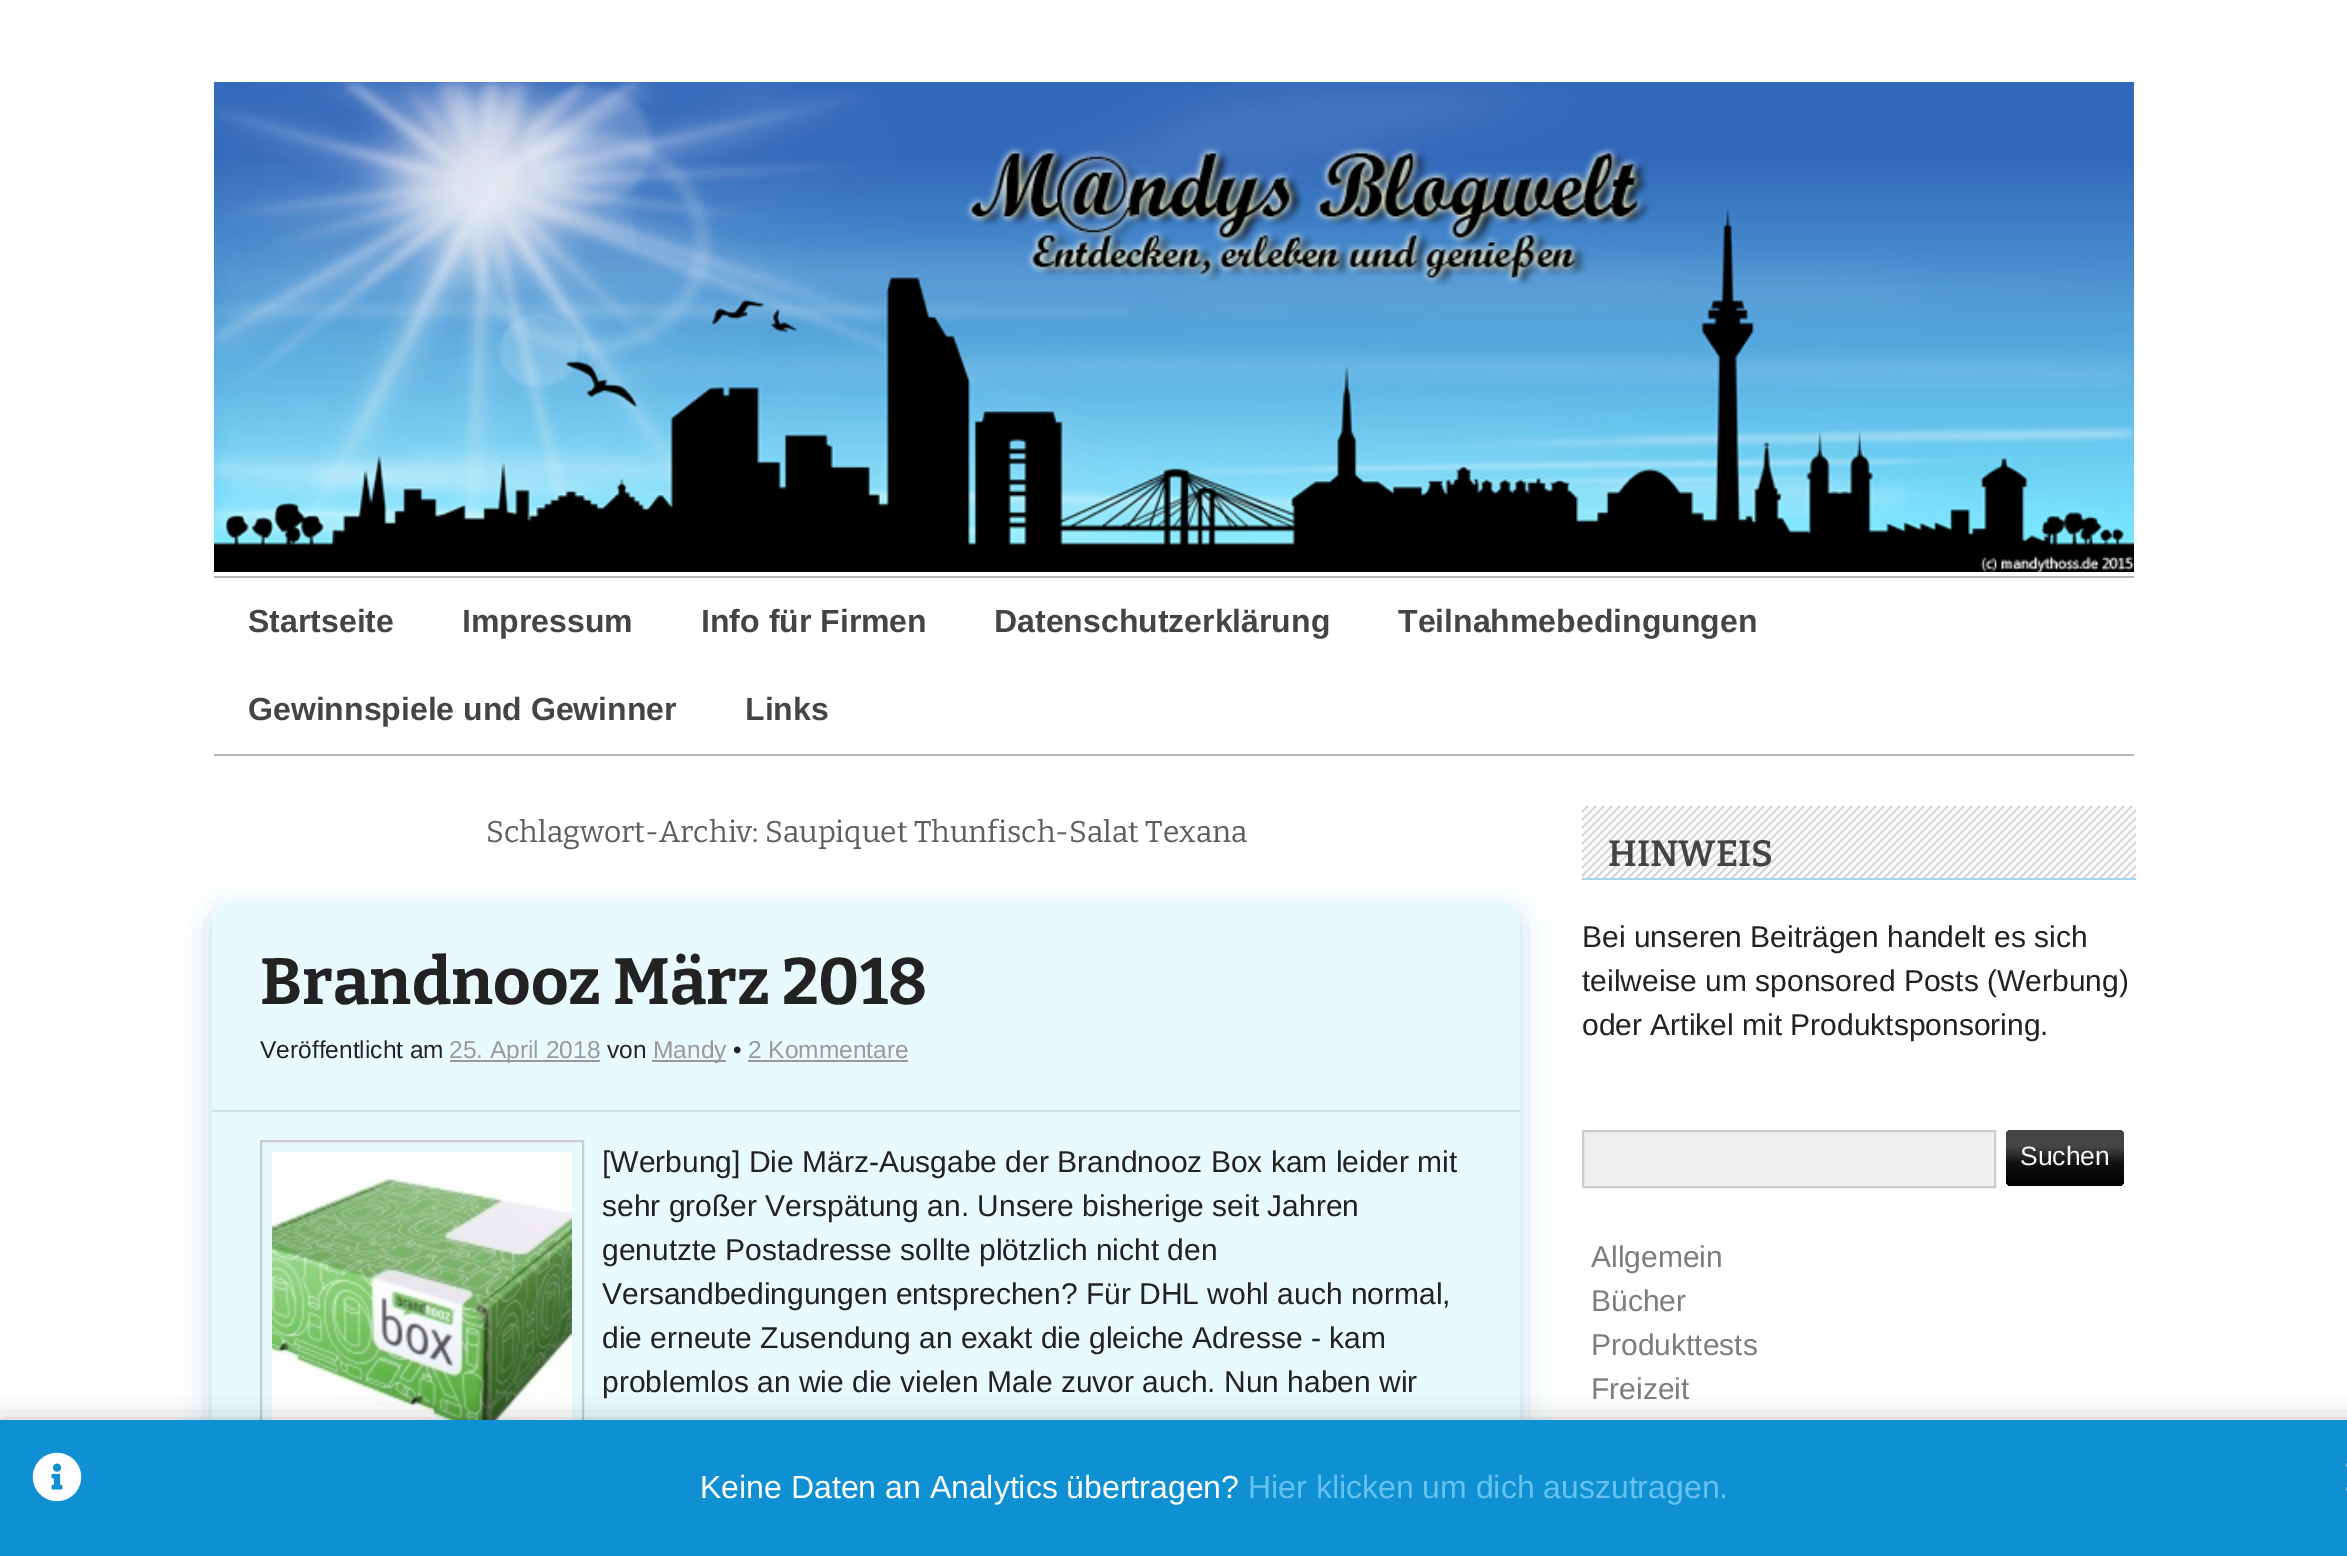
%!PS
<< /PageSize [2347 1556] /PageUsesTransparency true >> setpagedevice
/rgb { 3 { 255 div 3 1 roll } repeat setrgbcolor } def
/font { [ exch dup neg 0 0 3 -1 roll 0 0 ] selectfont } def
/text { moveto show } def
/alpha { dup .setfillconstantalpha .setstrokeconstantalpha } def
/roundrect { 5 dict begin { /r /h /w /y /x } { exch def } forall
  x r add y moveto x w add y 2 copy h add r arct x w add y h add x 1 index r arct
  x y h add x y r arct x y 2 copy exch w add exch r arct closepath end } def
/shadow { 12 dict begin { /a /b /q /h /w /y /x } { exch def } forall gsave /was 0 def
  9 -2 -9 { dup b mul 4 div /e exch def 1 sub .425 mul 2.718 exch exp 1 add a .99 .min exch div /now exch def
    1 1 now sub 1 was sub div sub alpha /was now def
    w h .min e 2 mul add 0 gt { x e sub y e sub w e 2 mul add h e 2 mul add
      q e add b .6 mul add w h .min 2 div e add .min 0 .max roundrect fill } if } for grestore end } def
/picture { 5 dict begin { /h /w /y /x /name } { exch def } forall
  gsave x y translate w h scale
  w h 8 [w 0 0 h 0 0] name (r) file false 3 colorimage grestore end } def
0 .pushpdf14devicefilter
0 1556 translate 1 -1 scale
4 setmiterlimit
255 255 255 rgb
0 0 2347 1556 rectfill
(img_01.rgb) 214 82 1920 490 picture
182 181 181 rgb
214 576 1920 2 rectfill
214 754 1920 2 rectfill
188 220 237 rgb
212 912 1308 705 16 15 1 shadow
233 250 255 rgb
212 902 1308 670 16 roundrect fill
203 225 236 rgb
212 1110 1308 2 rectfill
153 153 153 rgb
450 1060 150 2 rectfill
652 1060 74 2 rectfill
748 1060 160 2 rectfill
204 204 204 rgb
2 setlinewidth
261 1141 322 322 rectstroke
(img_02.rgb) 272 1152 300 268 picture
(img_03.rgb) 1582 806 554 72 picture
163 213 239 rgb
1582 878 554 2 rectfill
240 239 239 rgb
1583 1131 moveto 412 0 rlineto 0 56 rlineto -412 0 rlineto closepath gsave fill grestore
204 204 204 rgb
stroke
gsave 2006 1130 118 56 6 roundrect clip newpath
<< /ShadingType 2 /ColorSpace /DeviceRGB /Coords [2006 1130 2006 1186] /Extend [true true] /Function << /FunctionType 3 /Domain [0 1] /Functions [<< /FunctionType 2 /Domain [0 1] /C0 [0.267 0.267 0.267] /C1 [0.267 0.267 0.267] /N 1 >> << /FunctionType 2 /Domain [0 1] /C0 [0.267 0.267 0.267] /C1 [0.067 0.067 0.067] /N 1 >> << /FunctionType 2 /Domain [0 1] /C0 [0.067 0.067 0.067] /C1 [0 0 0] /N 1 >>] /Bounds [0.3 0.59] /Encode [0 1 0 1 0 1] >> >> shfill grestore
0 0 0 rgb
0 1428 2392 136 0 15 0.4 shadow
14 144 210 rgb
0 1420 2347 136 rectfill
(img_04.rgb) 32 1452 50 50 picture
(img_05.rgb) 2346 1463 1 28 picture
/LiberationSans-Bold 32 font
68 68 68 rgb
(Startseite) 248 632 text
(Impressum) 462 632 text
(Info für Firmen) 701 632 text
(Datenschutzerklärung) 994 632 text
(Teilnahmebedingungen) 1398 632 text
(Gewinnspiele und Gewinner) 248 720 text
(Links) 745 720 text
/Bitter-Regular 30 font
94 94 94 rgb
(Schlagwort-Archiv: Saupiquet Thunfisch-Salat Texana) 486 842 text
/Bitter-Bold 65.25 font
34 34 34 rgb
(Brandnooz März 2018) 260 1004 text
/LiberationSans-Regular 24.5 font
(Veröffentlicht am) 260 1058 text
153 153 153 rgb
(25. April 2018) 449 1058 text
34 34 34 rgb
(von) 607 1058 text
153 153 153 rgb
(Mandy) 653 1058 text
34 34 34 rgb
(•) 733 1058 text
153 153 153 rgb
(2 Kommentare) 748 1058 text
/LiberationSans-Regular 30 font
34 34 34 rgb
([Werbung] Die März-Ausgabe der Brandnooz Box kam leider mit) 602 1172 text
(sehr großer Verspätung an. Unsere bisherige seit Jahren) 602 1216 text
(genutzte Postadresse sollte plötzlich nicht den) 602 1260 text
(Versandbedingungen entsprechen? Für DHL wohl auch normal,) 602 1304 text
(die erneute Zusendung an exakt die gleiche Adresse - kam) 602 1348 text
(problemlos an wie die vielen Male zuvor auch. Nun haben wir) 602 1392 text
/Bitter-SemiBold 36.5 font
68 68 68 rgb
(HINWEIS) 1608 866 text
/LiberationSans-Regular 30 font
34 34 34 rgb
(Bei unseren Beiträgen handelt es sich) 1582 947 text
(teilweise um sponsored Posts \(Werbung\)) 1582 991 text
(oder Artikel mit Produktsponsoring.) 1582 1035 text
/LiberationSans-Regular 26.5 font
248 248 248 rgb
(Suchen) 2020 1165 text
/LiberationSans-Regular 30 font
125 125 125 rgb
(Allgemein) 1591 1267 text
(Bücher) 1591 1311 text
(Produkttests) 1591 1355 text
(Freizeit) 1591 1399 text
/LiberationSans-Regular 32 font
255 255 255 rgb
(Keine Daten an Analytics übertragen?) 700 1498 text
103 194 240 rgb
(Hier klicken um dich auszutragen.) 1248 1498 text
.poppdf14devicefilter showpage
